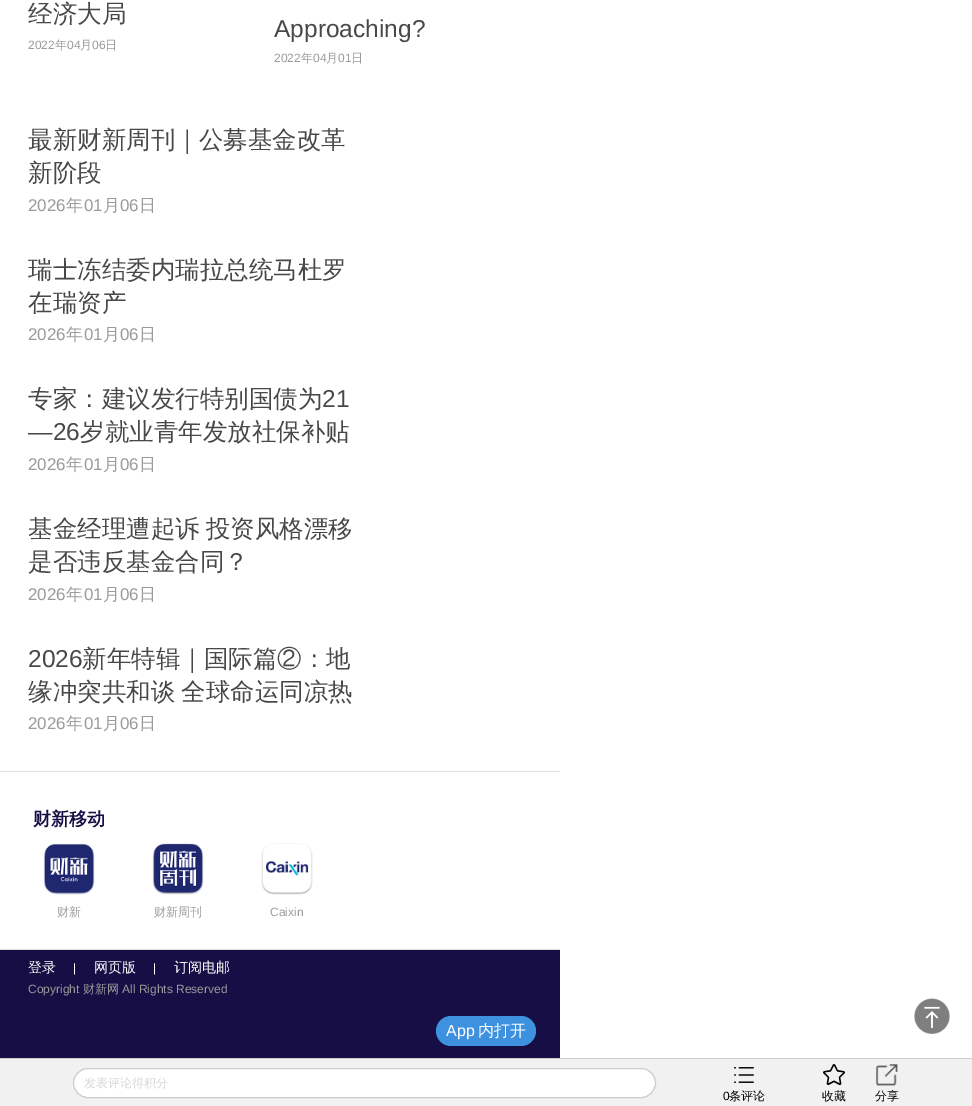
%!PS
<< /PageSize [972 1106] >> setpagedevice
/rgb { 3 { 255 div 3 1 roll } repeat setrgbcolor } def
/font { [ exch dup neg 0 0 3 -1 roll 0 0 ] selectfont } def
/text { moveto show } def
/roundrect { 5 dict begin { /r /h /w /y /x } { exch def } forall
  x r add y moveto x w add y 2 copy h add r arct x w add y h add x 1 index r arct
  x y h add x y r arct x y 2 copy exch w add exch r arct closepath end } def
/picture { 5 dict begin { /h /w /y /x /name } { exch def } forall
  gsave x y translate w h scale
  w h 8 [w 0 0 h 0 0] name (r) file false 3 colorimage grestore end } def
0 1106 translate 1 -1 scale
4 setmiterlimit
255 255 255 rgb
0 0 972 1106 rectfill
223 223 223 rgb
0 771 560 1 rectfill
0 949 560 1 rectfill
(img_01.rgb) 43 843 52 52 picture
(img_02.rgb) 152 843 52 52 picture
(img_03.rgb) 261 843 52 52 picture
22 14 68 rgb
0 950 560 108 rectfill
(img_04.rgb) 914 998 36 36 picture
62 145 223 rgb
436 1016 100 30 15 roundrect fill
241 241 241 rgb
0 1059 972 47 rectfill
204 204 204 rgb
0 1058 972 1 rectfill
255 255 255 rgb
73.5 1068.5 582 29 14.5 roundrect gsave fill grestore
204 204 204 rgb
stroke
(img_05.rgb) 734 1067 20 16 picture
(img_06.rgb) 823 1064 22 21 picture
(img_07.rgb) 876 1064 22 22 picture
/WenQuanYiZenHei-Medium 24.5 font
72 72 72 rgb
(经济大局) 28 22 text
/LiberationSans-Regular 12 font
155 155 155 rgb
(2022) 28 49 text
/WenQuanYiZenHei-Medium 12 font
(年) 55 49 text
/LiberationSans-Regular 12 font
(04) 67 49 text
/WenQuanYiZenHei-Medium 12 font
(月) 80 49 text
/LiberationSans-Regular 12 font
(06) 92 49 text
/WenQuanYiZenHei-Medium 12 font
(日) 105 49 text
/LiberationSans-Regular 24.5 font
72 72 72 rgb
(Approaching?) 274 37 text
/LiberationSans-Regular 12 font
155 155 155 rgb
(2022) 274 62 text
/WenQuanYiZenHei-Medium 12 font
(年) 301 62 text
/LiberationSans-Regular 12 font
(04) 313 62 text
/WenQuanYiZenHei-Medium 12 font
(月) 326 62 text
/LiberationSans-Regular 12 font
(01) 338 62 text
/WenQuanYiZenHei-Medium 12 font
(日) 351 62 text
/WenQuanYiZenHei-Medium 24.5 font
72 72 72 rgb
(最新财新周刊｜公募基金改革) 28 148 text
(新阶段) 28 181 text
/LiberationSans-Regular 17 font
155 155 155 rgb
(2026) 28 211 text
/WenQuanYiZenHei-Medium 17 font
(年) 66 211 text
/LiberationSans-Regular 17 font
(01) 84 211 text
/WenQuanYiZenHei-Medium 17 font
(月) 103 211 text
/LiberationSans-Regular 17 font
(06) 120 211 text
/WenQuanYiZenHei-Medium 17 font
(日) 139 211 text
/WenQuanYiZenHei-Medium 24.5 font
72 72 72 rgb
(瑞士冻结委内瑞拉总统马杜罗) 28 278 text
(在瑞资产) 28 311 text
/LiberationSans-Regular 17 font
155 155 155 rgb
(2026) 28 340 text
/WenQuanYiZenHei-Medium 17 font
(年) 66 340 text
/LiberationSans-Regular 17 font
(01) 84 340 text
/WenQuanYiZenHei-Medium 17 font
(月) 103 340 text
/LiberationSans-Regular 17 font
(06) 120 340 text
/WenQuanYiZenHei-Medium 17 font
(日) 139 340 text
/WenQuanYiZenHei-Medium 24.5 font
72 72 72 rgb
(专家：建议发行特别国债为) 28 407 text
/LiberationSans-Regular 24.5 font
(21) 322 407 text
(—26) 28 440 text
/WenQuanYiZenHei-Medium 24.5 font
(岁就业青年发放社保补贴) 80 440 text
/LiberationSans-Regular 17 font
155 155 155 rgb
(2026) 28 470 text
/WenQuanYiZenHei-Medium 17 font
(年) 66 470 text
/LiberationSans-Regular 17 font
(01) 84 470 text
/WenQuanYiZenHei-Medium 17 font
(月) 103 470 text
/LiberationSans-Regular 17 font
(06) 120 470 text
/WenQuanYiZenHei-Medium 17 font
(日) 139 470 text
/WenQuanYiZenHei-Medium 24.5 font
72 72 72 rgb
28 537 moveto -1 0 32 (基金经理遭起诉 投资风格漂移) widthshow
(是否违反基金合同？) 28 570 text
/LiberationSans-Regular 17 font
155 155 155 rgb
(2026) 28 600 text
/WenQuanYiZenHei-Medium 17 font
(年) 66 600 text
/LiberationSans-Regular 17 font
(01) 84 600 text
/WenQuanYiZenHei-Medium 17 font
(月) 103 600 text
/LiberationSans-Regular 17 font
(06) 120 600 text
/WenQuanYiZenHei-Medium 17 font
(日) 139 600 text
/LiberationSans-Regular 24.5 font
72 72 72 rgb
(2026) 28 667 text
/WenQuanYiZenHei-Medium 24.5 font
(新年特辑｜国际篇②：地) 82 667 text
28 700 moveto -1 0 32 (缘冲突共和谈 全球命运同凉热) widthshow
/LiberationSans-Regular 17 font
155 155 155 rgb
(2026) 28 729 text
/WenQuanYiZenHei-Medium 17 font
(年) 66 729 text
/LiberationSans-Regular 17 font
(01) 84 729 text
/WenQuanYiZenHei-Medium 17 font
(月) 103 729 text
/LiberationSans-Regular 17 font
(06) 120 729 text
/WenQuanYiZenHei-Medium 17 font
(日) 139 729 text
/WenQuanYiZenHei-Bold 18 font
22 14 68 rgb
(财新移动) 33 825 text
/WenQuanYiZenHei-Medium 12 font
155 155 155 rgb
(财新) 57 916 text
(财新周刊) 154 916 text
/LiberationSans-Regular 12 font
(Caixin) 270 916 text
/WenQuanYiZenHei-Medium 14 font
255 255 255 rgb
(登录) 28 972 text
/LiberationSans-Regular 12 font
(|) 73 972 text
/WenQuanYiZenHei-Medium 14 font
(网页版) 94 972 text
/LiberationSans-Regular 12 font
(|) 153 972 text
/WenQuanYiZenHei-Medium 14 font
(订阅电邮) 174 972 text
/LiberationSans-Regular 12 font
155 155 155 rgb
(Copyright) 28 993 text
/WenQuanYiZenHei-Medium 12 font
(财新网) 83 993 text
/LiberationSans-Regular 12 font
(All Rights Reserved) 122 993 text
/LiberationSans-Regular 16 font
255 255 255 rgb
(App) 446 1036 text
/WenQuanYiZenHei-Medium 16 font
(内打开) 478 1036 text
/WenQuanYiZenHei-Medium 12 font
215 215 215 rgb
(发表评论得积分) 84 1087 text
/LiberationSans-Regular 12 font
0 0 0 rgb
(0) 723 1100 text
/WenQuanYiZenHei-Medium 12 font
(条评论) 729 1100 text
(收藏) 822 1100 text
(分享) 875 1100 text
showpage
